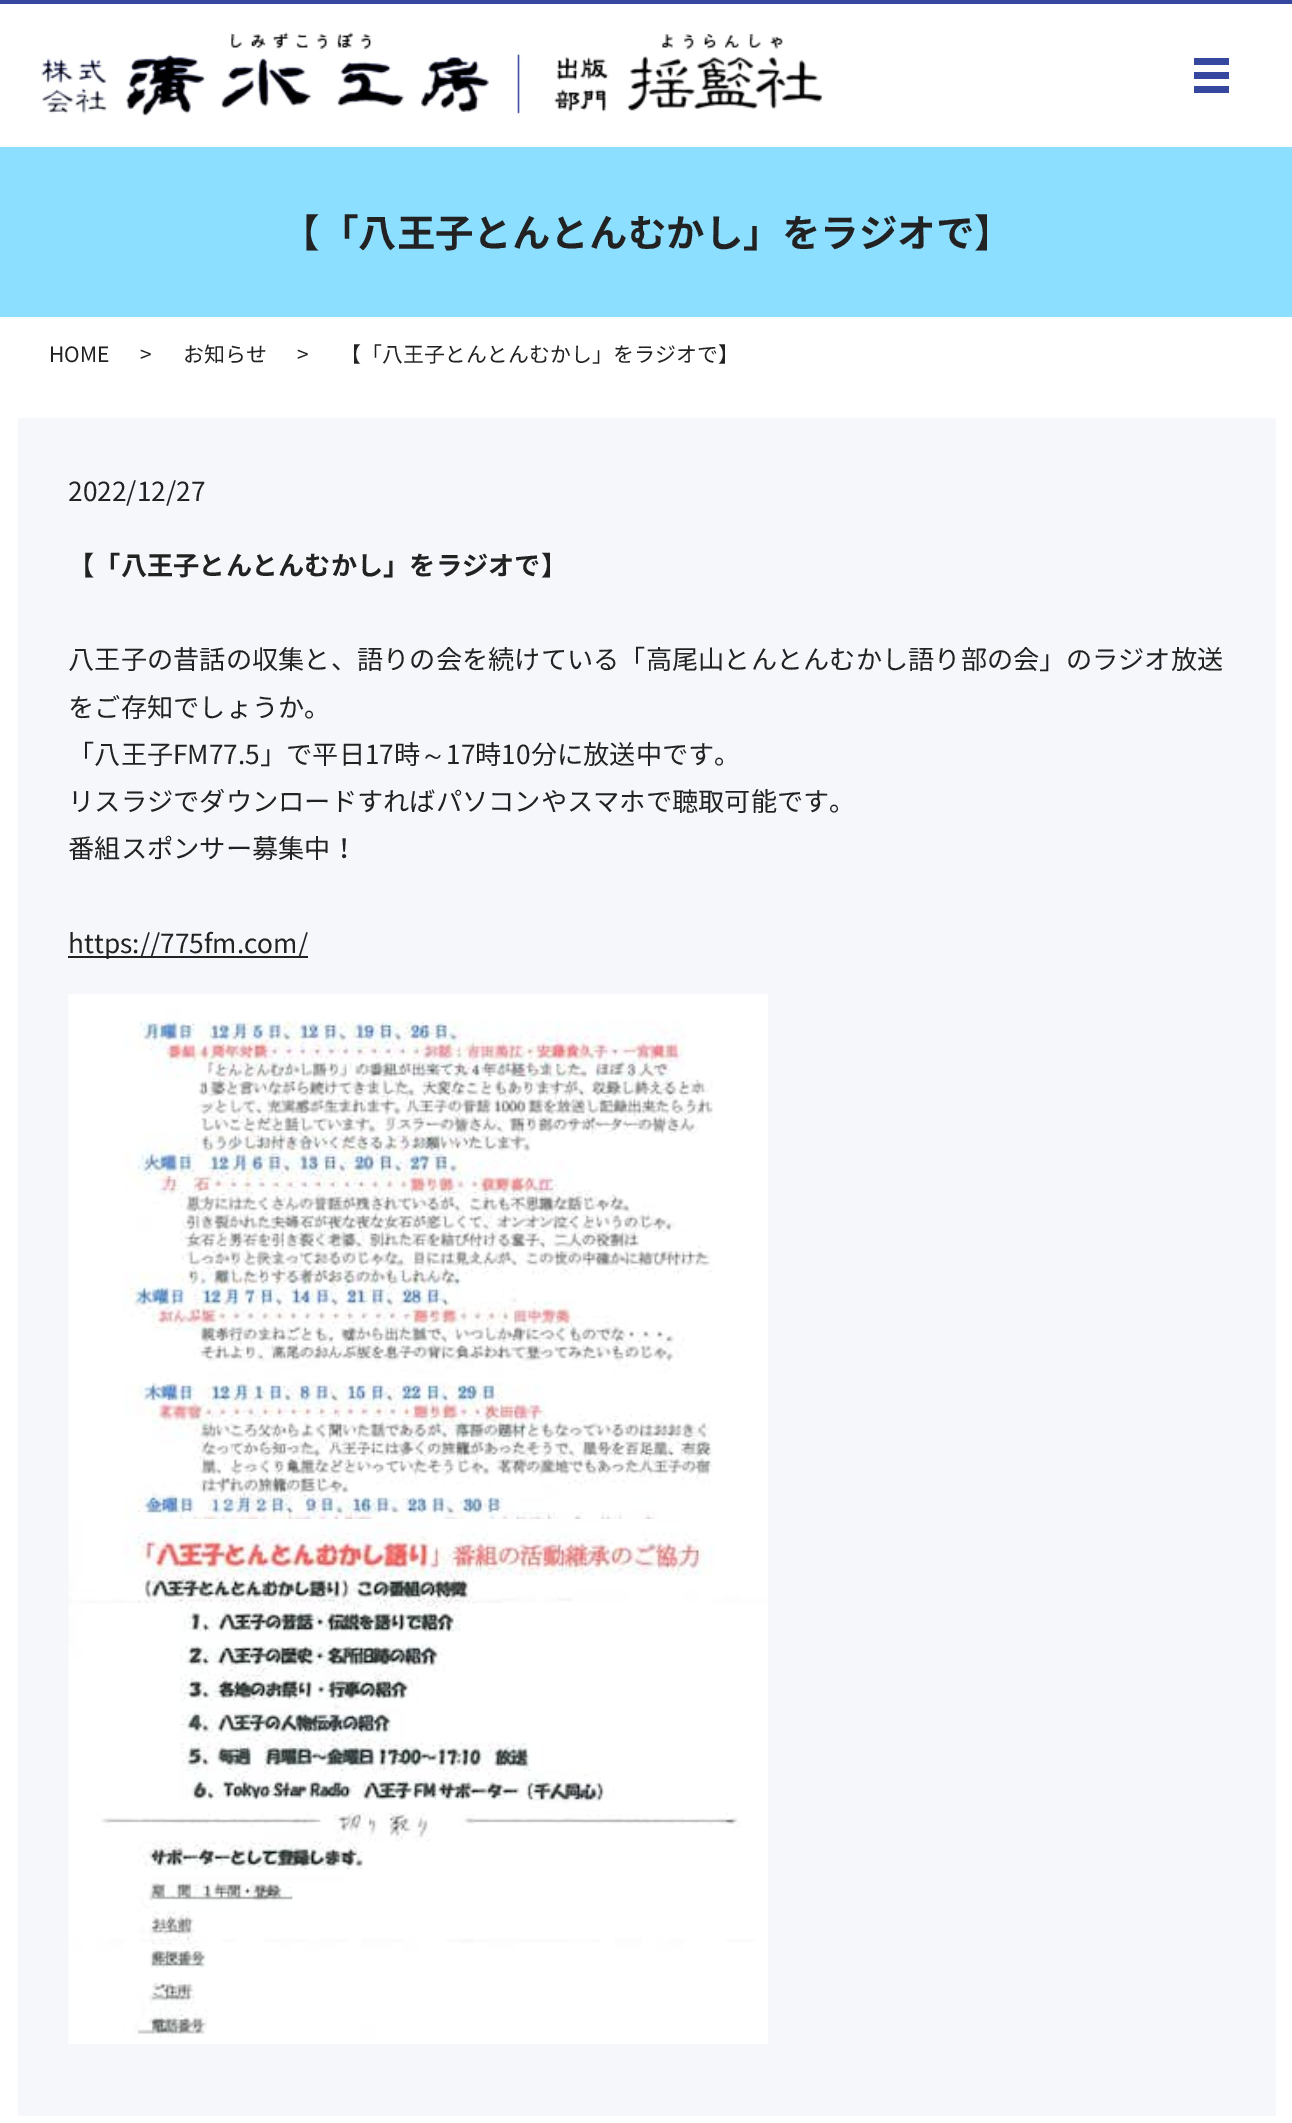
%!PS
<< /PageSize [1292 2123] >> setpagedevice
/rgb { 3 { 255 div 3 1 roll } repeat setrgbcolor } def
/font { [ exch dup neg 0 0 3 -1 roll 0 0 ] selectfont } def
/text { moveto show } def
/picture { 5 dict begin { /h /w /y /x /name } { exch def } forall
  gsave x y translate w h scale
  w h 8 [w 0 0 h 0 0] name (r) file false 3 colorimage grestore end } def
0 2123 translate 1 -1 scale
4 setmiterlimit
255 255 255 rgb
0 0 1292 2123 rectfill
54 71 159 rgb
0 0 1292 4 rectfill
(img_01.rgb) 41 32 783 85 picture
1194 58 35 7 rectfill
1194 72 35 7 rectfill
1194 86 35 7 rectfill
141 223 255 rgb
0 147 1292 170 rectfill
246 247 251 rgb
18 418 1258 1698 rectfill
34 34 34 rgb
68 956 240 2 rectfill
(img_02.rgb) 68 994 700 525 picture
(img_03.rgb) 68 1519 700 525 picture
/NotoSansJP-Bold 38.5 font
(【「八王子とんとんむかし」をラジオで】) 281 247 text
/NotoSansJP-Regular 21 font
(HOME) 49 362 text
(>) 140 362 text
(お知らせ) 183 362 text
(>) 297 362 text
(【「八王子とんとんむかし」をラジオで】) 340 362 text
/NotoSansJP-Regular 26.25 font
(2022/12/27) 68 501 text
/NotoSansJP-Bold 26.25 font
(【「八王子とんとんむかし」をラジオで】) 68 575 text
/NotoSansJP-Regular 26.25 font
(八王子の昔話の収集と、語りの会を続けている「高尾山とんとんむかし語り部の会」のラジオ放送) 68 669 text
(をご存知でしょうか。) 68 717 text
(「八王子FM77.5」で平日17時) 68 764 text
/WenQuanYiZenHei-Medium 26.25 font
(～) 420 764 text
/NotoSansJP-Regular 26.25 font
(17時10分に放送中です。) 446 764 text
(リスラジでダウンロードすればパソコンやスマホで聴取可能です。) 68 811 text
(番組スポンサー募集中！) 68 858 text
(https://775fm.com/) 68 953 text
showpage
